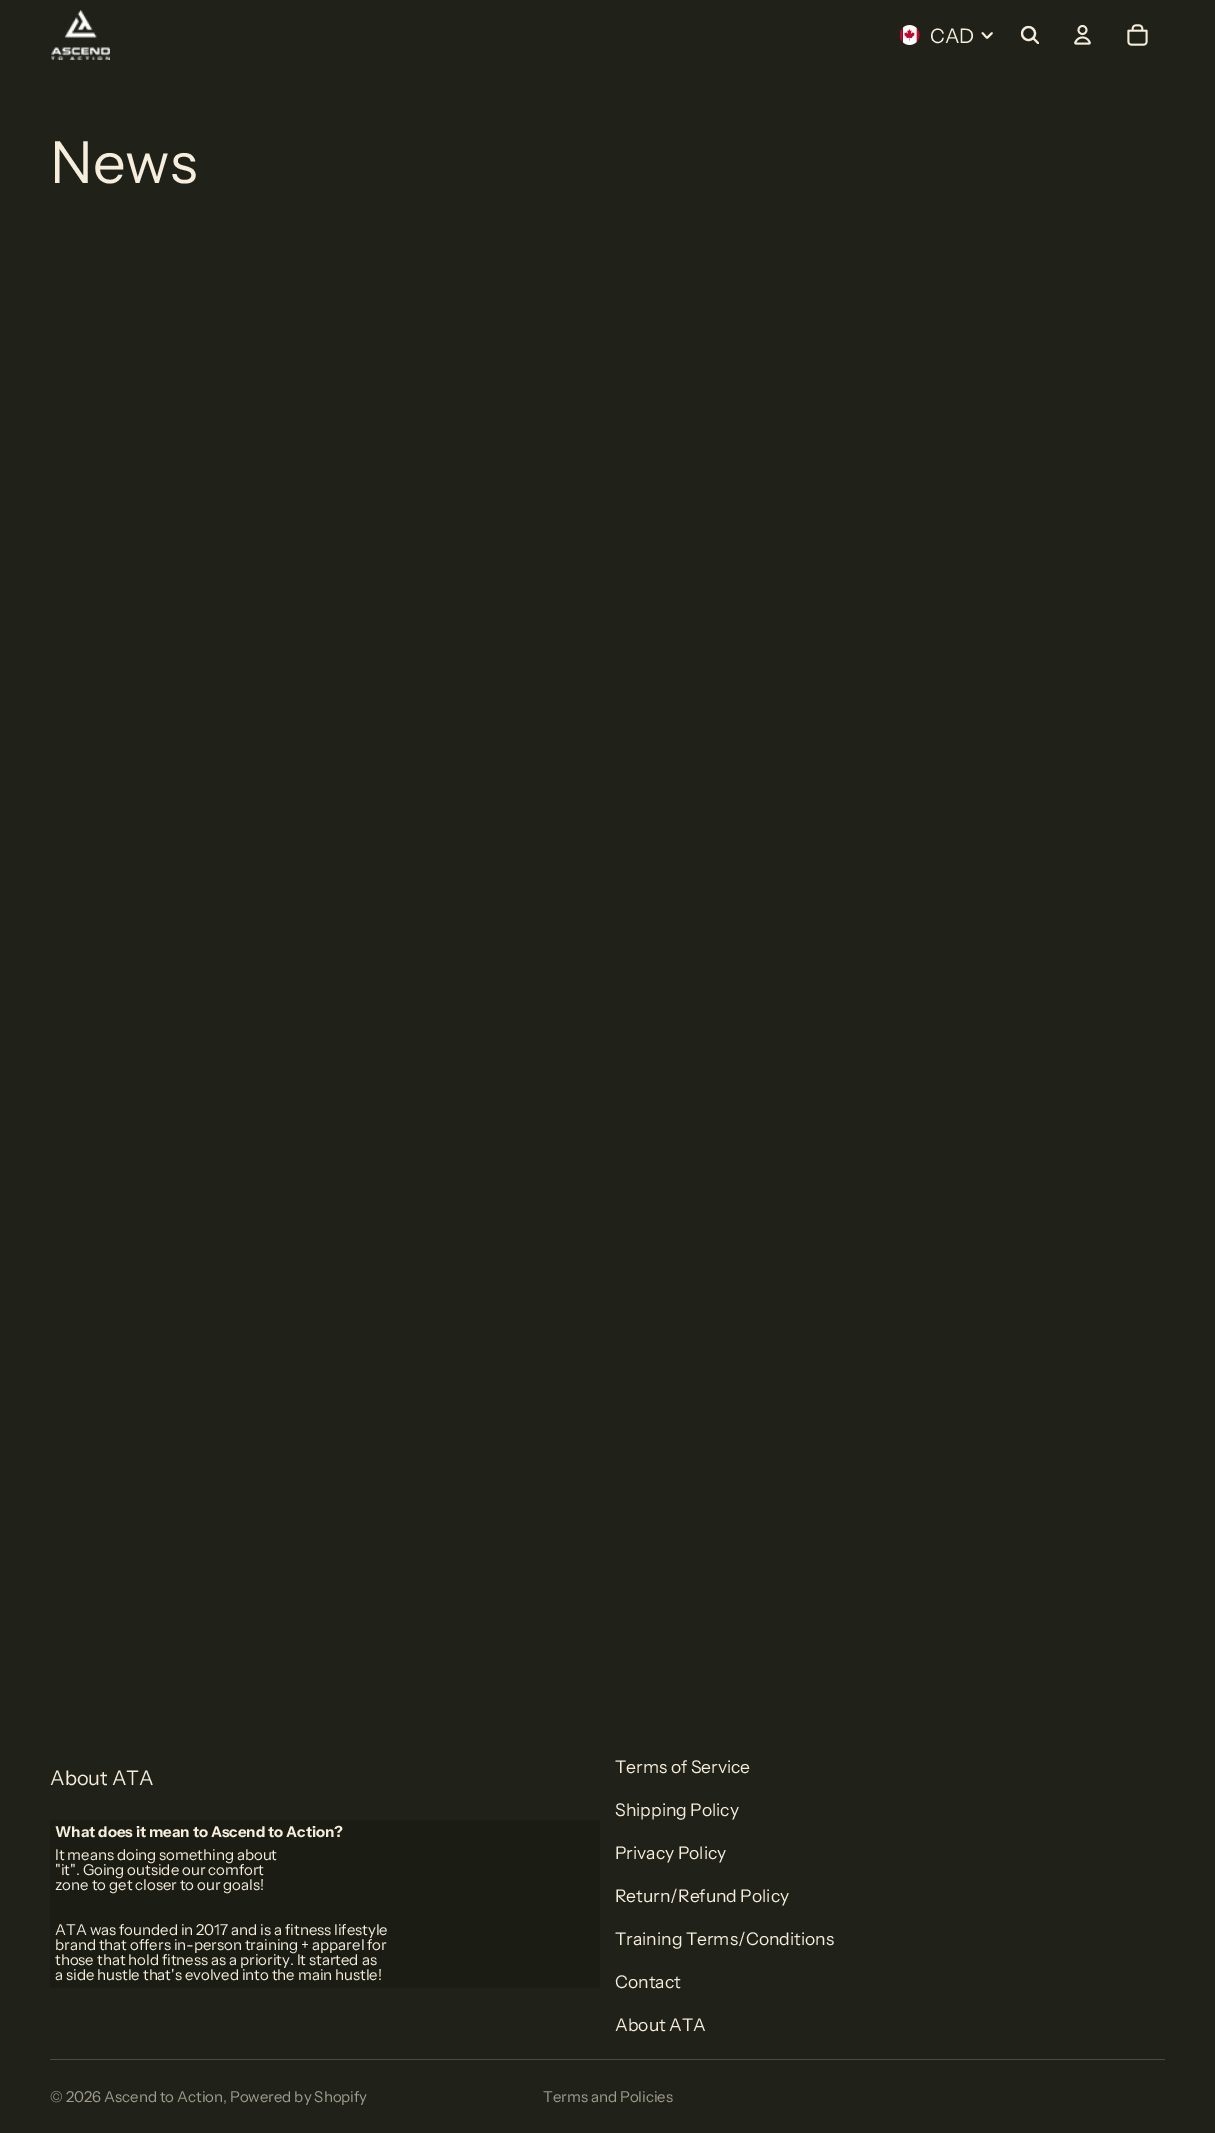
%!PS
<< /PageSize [1215 2133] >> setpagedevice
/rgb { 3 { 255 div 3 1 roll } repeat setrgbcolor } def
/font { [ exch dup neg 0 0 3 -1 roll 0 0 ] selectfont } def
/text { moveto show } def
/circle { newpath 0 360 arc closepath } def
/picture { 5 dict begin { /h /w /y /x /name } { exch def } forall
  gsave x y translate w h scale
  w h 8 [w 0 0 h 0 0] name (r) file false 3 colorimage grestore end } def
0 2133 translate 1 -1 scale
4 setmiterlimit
32 34 25 rgb
0 0 1215 2133 rectfill
(img_01.rgb) 51 10 59 50 picture
(img_02.rgb) 900 25 20 20 picture
246 237 221 rgb
1.8 setlinewidth
1 setlinecap
1 setlinejoin
992 33 moveto -5 5 rlineto -4.5 -5 rlineto stroke
2.1 setlinewidth
0 setlinecap
0 setlinejoin
1028.5 33.5 6.5 circle stroke
1 setlinecap
1 setlinejoin
1033.5 38.5 moveto 4.5 4.5 rlineto stroke
(img_03.rgb) 1074 24 17 21 picture
(img_04.rgb) 1127 24 21 22 picture
27 29 21 rgb
50 1820 550 168 rectfill
75 75 64 rgb
50 2059 1115 1 rectfill
/InstrumentSans-Regular 20 font
246 237 221 rgb
(CAD) 930 43 text
/InstrumentSans-Regular 58 font
(News) 50 183 text
/InstrumentSans-Regular 20 font
(About ATA) 50 1785 text
/InstrumentSans-Bold 15 font
(What does it mean to Ascend to Action?) 55 1837 text
/InstrumentSans-Regular 15 font
(It means doing something about) 55 1860 text
("it". Going outside our comfort) 55 1875 text
(zone to get closer to our goals!) 55 1890 text
(ATA was founded in 2017 and is a fitness lifestyle) 55 1935 text
(brand that offers in-person training + apparel for) 55 1950 text
(those that hold fitness as a priority. It started as) 55 1965 text
(a side hustle that's evolved into the main hustle!) 55 1980 text
/InstrumentSans-Regular 17.5 font
(Terms of Service) 615 1773 text
(Shipping Policy) 615 1816 text
(Privacy Policy) 615 1859 text
(Return/Refund Policy) 615 1902 text
(Training Terms/Conditions) 615 1945 text
(Contact) 615 1988 text
(About ATA) 615 2031 text
/InstrumentSans-Regular 15 font
160 156 143 rgb
(© 2026 Ascend to Action, Powered by Shopify) 50 2102 text
(Terms and Policies) 543 2102 text
showpage
